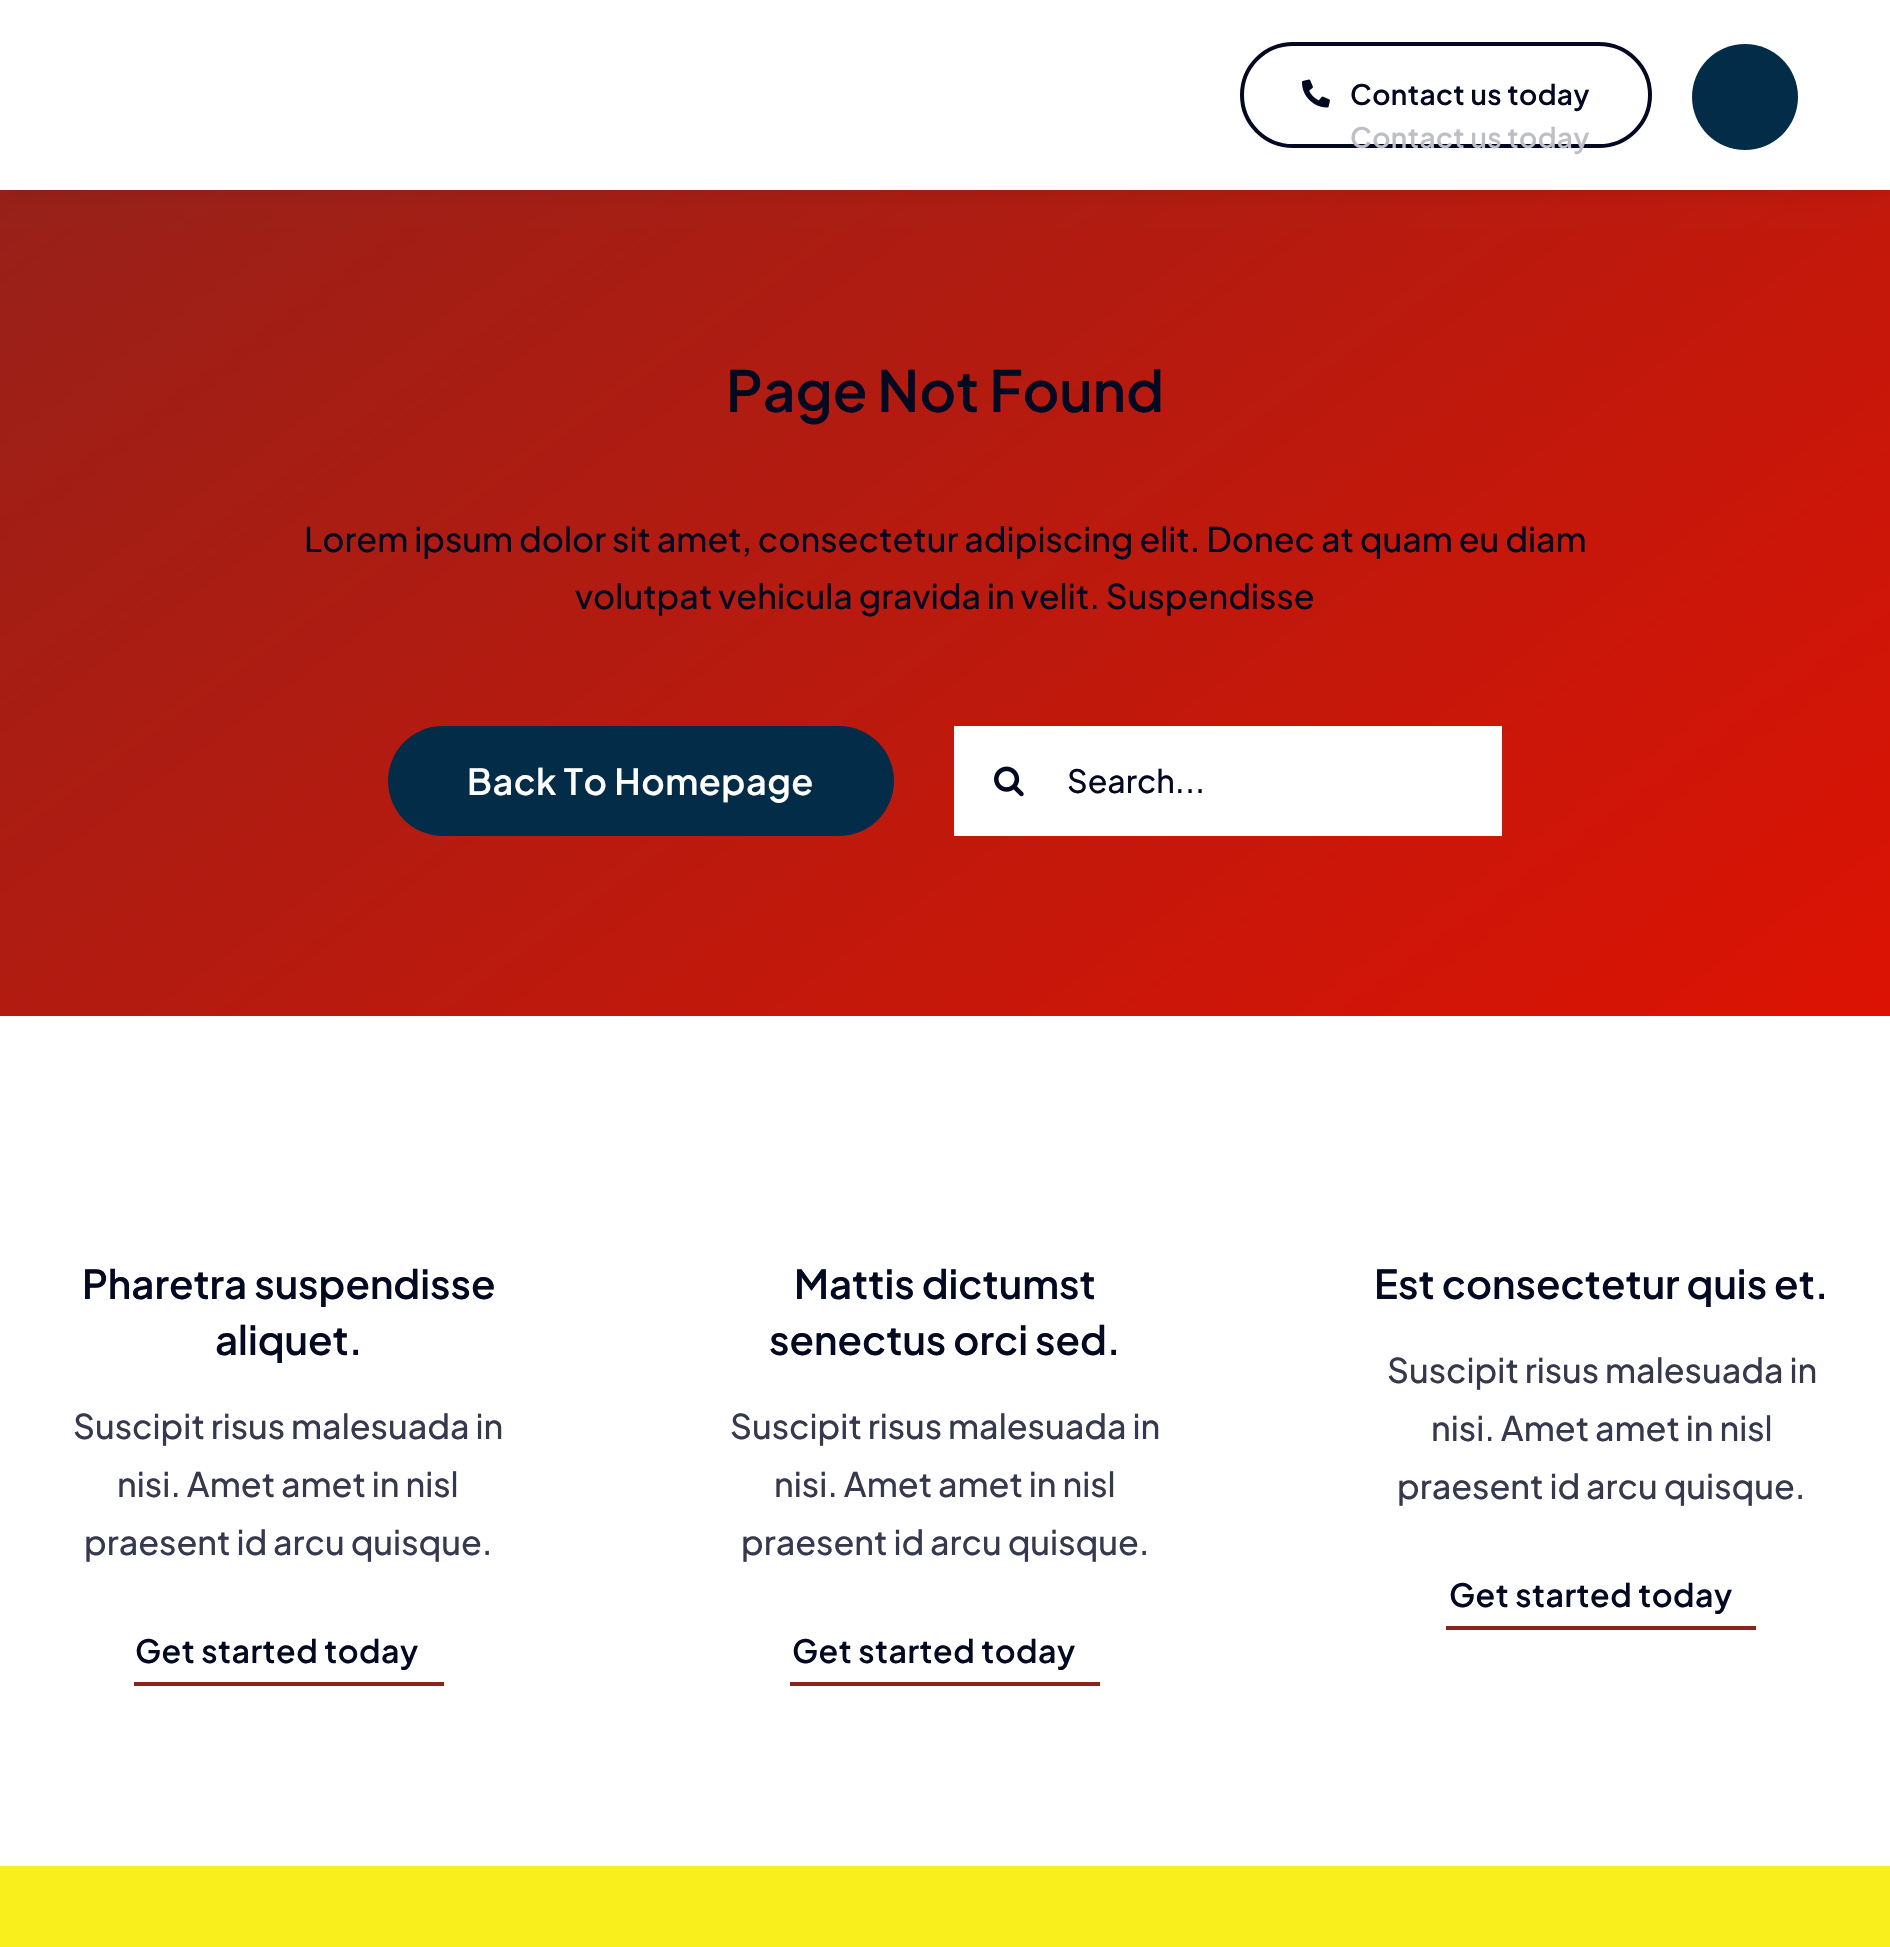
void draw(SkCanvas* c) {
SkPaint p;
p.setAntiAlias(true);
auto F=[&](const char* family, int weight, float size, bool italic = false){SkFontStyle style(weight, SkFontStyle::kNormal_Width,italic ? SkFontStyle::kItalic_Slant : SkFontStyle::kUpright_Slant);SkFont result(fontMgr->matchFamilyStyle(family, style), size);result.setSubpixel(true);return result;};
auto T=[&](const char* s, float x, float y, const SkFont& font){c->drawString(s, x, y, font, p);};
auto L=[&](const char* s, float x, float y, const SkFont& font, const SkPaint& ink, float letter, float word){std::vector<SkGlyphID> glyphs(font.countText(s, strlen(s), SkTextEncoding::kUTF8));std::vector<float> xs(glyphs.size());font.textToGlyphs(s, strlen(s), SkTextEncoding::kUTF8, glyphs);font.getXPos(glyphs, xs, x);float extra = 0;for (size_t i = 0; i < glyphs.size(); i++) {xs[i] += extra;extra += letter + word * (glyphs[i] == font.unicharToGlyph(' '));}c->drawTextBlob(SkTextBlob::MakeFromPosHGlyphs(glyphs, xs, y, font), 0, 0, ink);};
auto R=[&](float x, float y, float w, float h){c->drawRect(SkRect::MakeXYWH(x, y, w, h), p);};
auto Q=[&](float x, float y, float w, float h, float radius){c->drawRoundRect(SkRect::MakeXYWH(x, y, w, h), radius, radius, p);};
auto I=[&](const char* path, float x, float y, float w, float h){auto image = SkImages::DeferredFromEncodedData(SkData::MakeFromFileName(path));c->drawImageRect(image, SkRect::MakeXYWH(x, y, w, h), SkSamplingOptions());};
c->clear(0xffffffff);
{
const SkColor colors[] = {0xff8b231c,0xffdc1304};
const float stops[] = {0,1};
const SkPoint ends[] = {{327,-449}, {1563,1253}};
p.setShader(SkGradientShader::MakeLinear(ends, colors, stops, 2, SkTileMode::kClamp));
p.setAlpha(255);
}
R(0,190,1890,826);
p.setShader(nullptr);
p.setColor(0x1a040820);
p.setMaskFilter(SkMaskFilter::MakeBlur(kNormal_SkBlurStyle, 13));
c->drawRect(SkRect::MakeXYWH(0,0,1890,190),p);
p.setMaskFilter(nullptr);
p.setColor(0xffffffff);
R(0,0,1890,190);
p.setStroke(true);
p.setStrokeWidth(4);
p.setColor(0xff040922);
c->drawRoundRect(SkRect::MakeXYWH(1242,44,408,102),51,51,p);
I("1.png",1302,79,28,29);
auto f1 = F("Plus Jakarta Sans",600,28);
p.setStroke(false);
L("Contact us today",1350,105,f1,p,.4,0);
p.setColor(0xffbebfc6);
L("Contact us today",1350,148,f1,p,.4,0);
p.setColor(0xff032c48);
c->drawCircle(1745,97,53,p);
auto f2 = F("Plus Jakarta Sans",600,56.75);
p.setColor(0xff040922);
T("Page Not Found",726,412,f2);
auto f3 = F("Plus Jakarta Sans",500,34);
T("Lorem ipsum dolor sit amet, consectetur adipiscing elit. Donec at quam eu diam",304,552,f3);
T("volutpat vehicula gravida in velit. Suspendisse",575,609,f3);
p.setColor(0xff032c48);
Q(388,726,506,110,55);
auto f4 = F("Plus Jakarta Sans",600,36);
p.setColor(0xffffffff);
L("Back To Homepage",467,795,f4,p,.5,0);
R(954,726,548,110);
I("2.png",994,766,30,31);
auto f5 = F("Plus Jakarta Sans",500,32);
p.setColor(0xff040922);
T("Search...",1067,793,f5);
auto f6 = F("Plus Jakarta Sans",600,40);
T("Pharetra suspendisse",82,1299,f6);
T("aliquet.",215,1355,f6);
p.setColor(0xff36394d);
T("Suscipit risus malesuada in",73,1439,f3);
T("nisi. Amet amet in nisl",117,1497,f3);
T("praesent id arcu quisque.",84,1555,f3);
p.setColor(0xff8b231c);
R(134,1682,310,4);
auto f7 = F("Plus Jakarta Sans",600,32);
p.setColor(0xff040922);
L("Get started today",135,1663,f7,p,.5,0);
T("Mattis dictumst",794,1299,f6);
T("senectus orci sed.",769,1355,f6);
p.setColor(0xff36394d);
T("Suscipit risus malesuada in",730,1439,f3);
T("nisi. Amet amet in nisl",774,1497,f3);
T("praesent id arcu quisque.",741,1555,f3);
p.setColor(0xff8b231c);
R(790,1682,310,4);
p.setColor(0xff040922);
L("Get started today",792,1663,f7,p,.5,0);
T("Est consectetur quis et.",1374,1299,f6);
p.setColor(0xff36394d);
T("Suscipit risus malesuada in",1387,1383,f3);
T("nisi. Amet amet in nisl",1431,1441,f3);
T("praesent id arcu quisque.",1397,1499,f3);
p.setColor(0xff8b231c);
R(1446,1626,310,4);
p.setColor(0xff040922);
L("Get started today",1449,1607,f7,p,.5,0);
p.setColor(0xfff9ef1c);
R(0,1866,1890,81);
}
